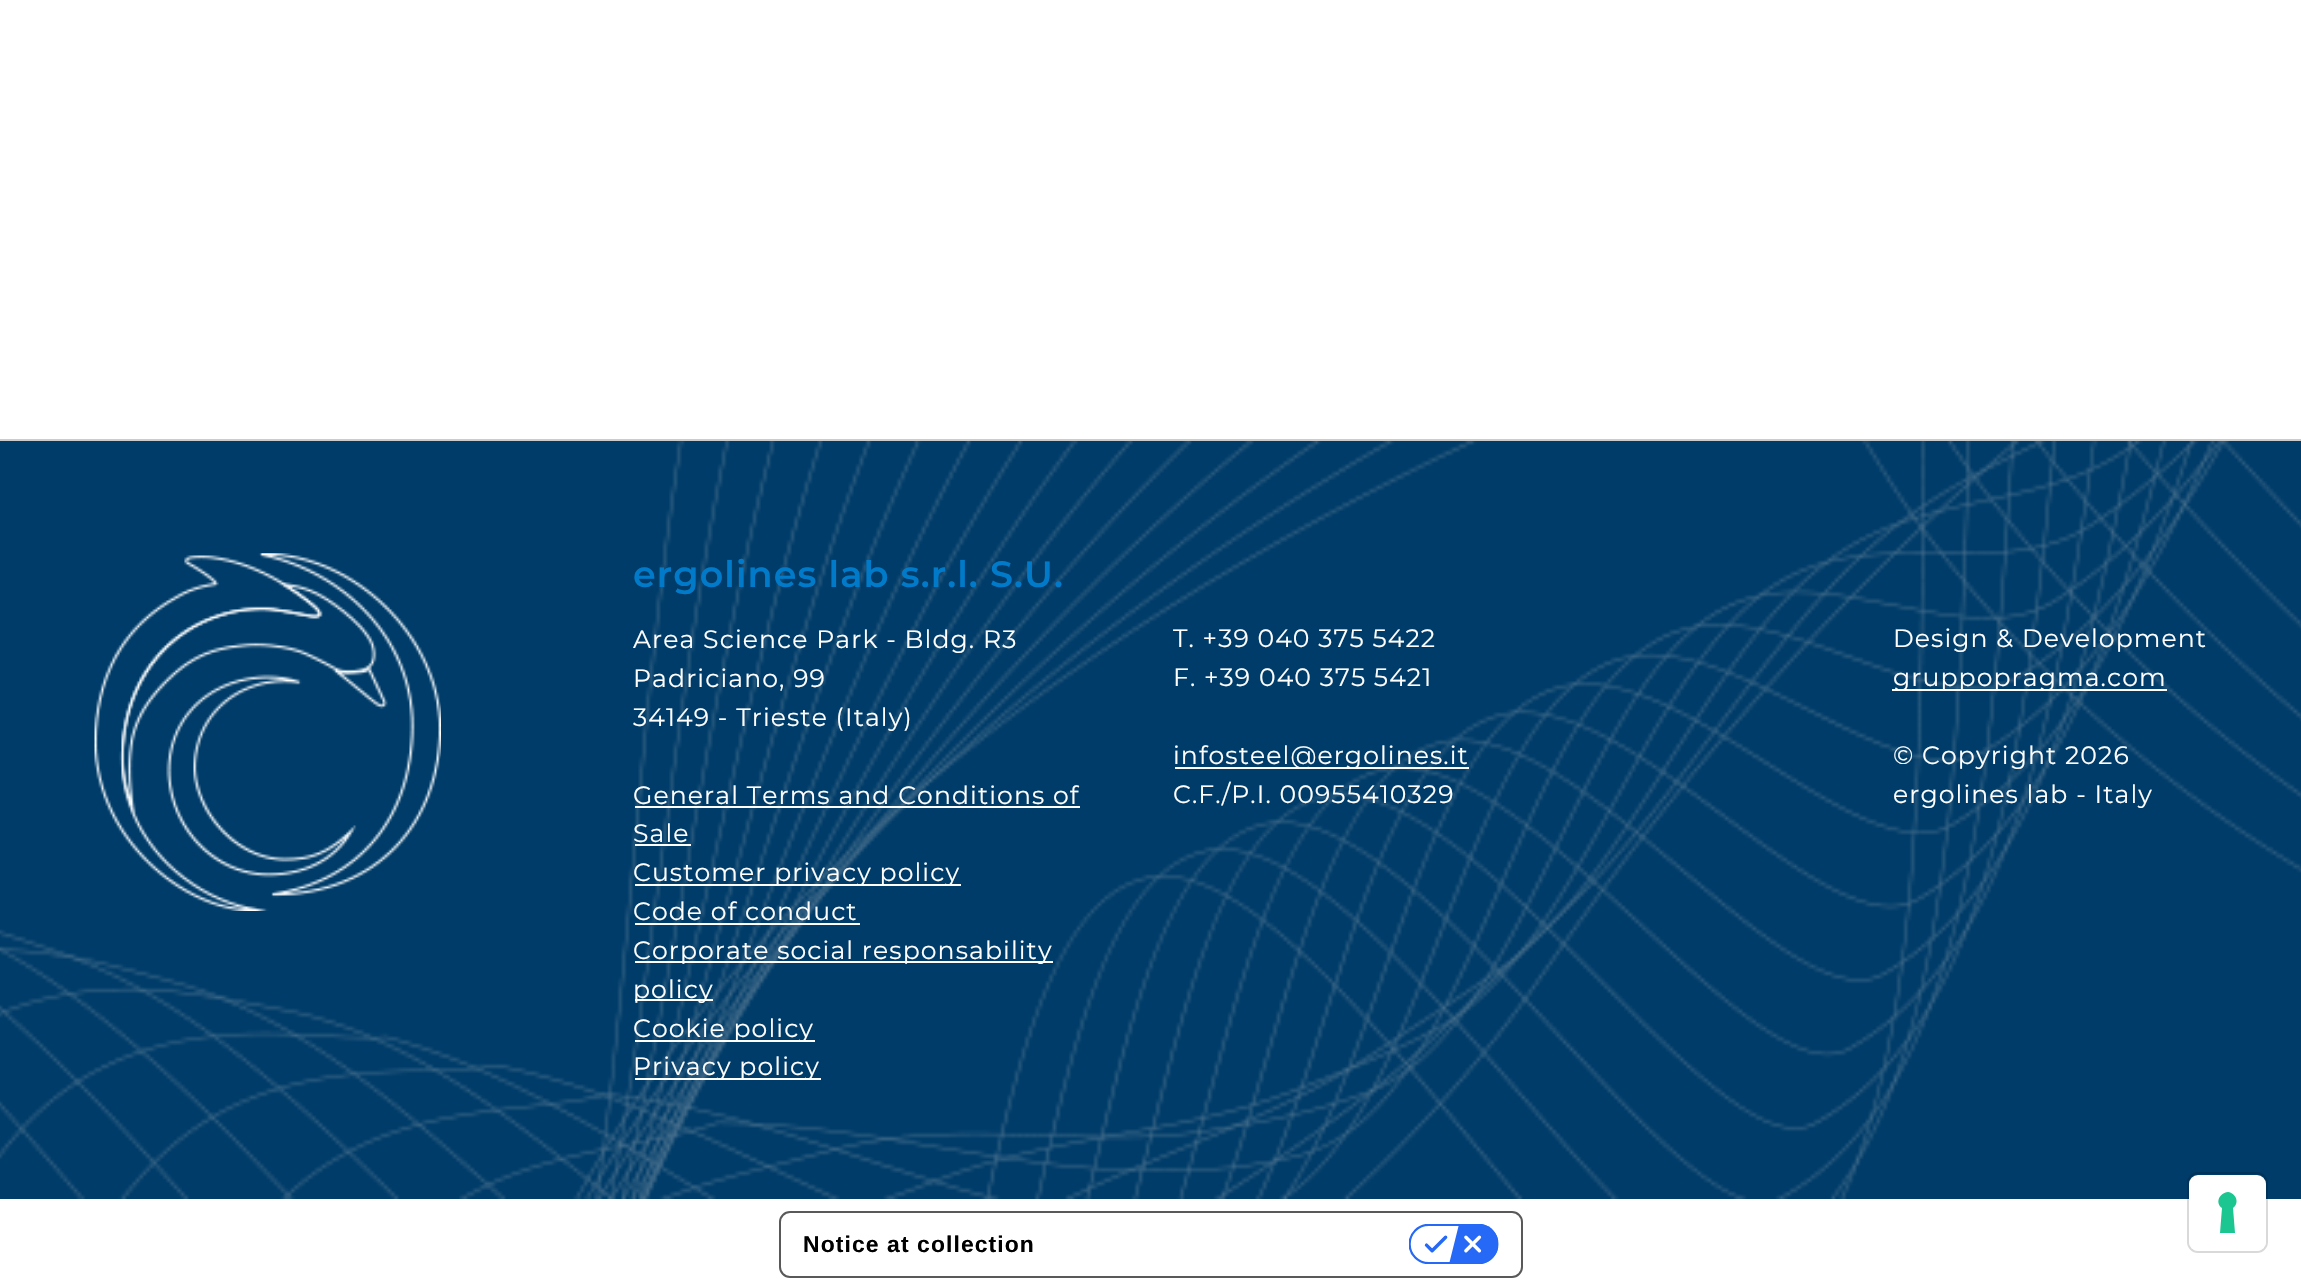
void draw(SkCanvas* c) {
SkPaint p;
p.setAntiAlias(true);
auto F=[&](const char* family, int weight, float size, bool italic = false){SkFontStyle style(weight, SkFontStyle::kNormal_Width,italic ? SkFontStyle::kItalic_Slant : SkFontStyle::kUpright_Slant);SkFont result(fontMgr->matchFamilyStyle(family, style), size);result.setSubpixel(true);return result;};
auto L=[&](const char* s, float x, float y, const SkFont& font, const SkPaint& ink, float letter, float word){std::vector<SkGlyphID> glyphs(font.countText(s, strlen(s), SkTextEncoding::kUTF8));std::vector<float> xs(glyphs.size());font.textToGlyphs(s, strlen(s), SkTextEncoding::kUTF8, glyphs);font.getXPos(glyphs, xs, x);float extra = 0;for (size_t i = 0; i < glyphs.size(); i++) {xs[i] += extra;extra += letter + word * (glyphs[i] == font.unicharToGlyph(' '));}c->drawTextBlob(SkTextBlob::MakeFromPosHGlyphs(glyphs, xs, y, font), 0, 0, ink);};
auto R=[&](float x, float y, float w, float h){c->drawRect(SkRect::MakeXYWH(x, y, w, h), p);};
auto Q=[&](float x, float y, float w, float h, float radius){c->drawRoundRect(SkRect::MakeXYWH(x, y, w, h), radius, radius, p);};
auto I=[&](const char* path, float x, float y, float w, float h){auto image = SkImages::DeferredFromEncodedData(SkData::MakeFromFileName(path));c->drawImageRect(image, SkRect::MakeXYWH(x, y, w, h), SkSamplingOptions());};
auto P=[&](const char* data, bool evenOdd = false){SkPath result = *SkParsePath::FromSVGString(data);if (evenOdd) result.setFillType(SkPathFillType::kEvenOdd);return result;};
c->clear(0xffffffff);
p.setColor(0xff003c69);
R(0,441,2301,758);
I("1.png",0,441,2301,758);
p.setColor(0xffcccccc);
R(0,439,2301,2);
I("2.png",94,553,347,358);
auto f1 = F("Montserrat",600,36.5);
p.setColor(0xff007ac9);
L("ergolines lab s.r.l. S.U.",633,587,f1,p,1.1,0);
auto f2 = F("Montserrat",400,25.1);
p.setColor(0xffffffff);
L("Area Science Park - Bldg. R3",633,648,f2,p,1.1,0);
L("Padriciano, 99",633,687,f2,p,1.1,0);
L("34149 - Trieste (Italy)",633,726,f2,p,1.1,0);
L("General Terms and Conditions of",633,804,f2,p,1.1,0);
R(635,806,445,2);
L("Sale",633,842,f2,p,1.1,0);
R(635,844,56,2);
R(635,884,326,2);
L("Customer privacy policy",633,881,f2,p,1.1,0);
L("Code of conduct",633,920,f2,p,1.1,0);
R(635,923,225,2);
R(635,961,418,2);
L("Corporate social responsability",633,959,f2,p,1.1,0);
R(635,999,78,2);
L("policy",633,998,f2,p,1.1,0);
R(635,1040,180,2);
L("Cookie policy",633,1037,f2,p,1.1,0);
R(635,1078,186,2);
L("Privacy policy",633,1075,f2,p,1.1,0);
L("T. +39 040 375 5422",1173,647,f2,p,1.1,0);
L("F. +39 040 375 5421",1173,686,f2,p,1.1,0);
R(1175,767,294,2);
L("infosteel@ergolines.it",1173,764,f2,p,1.1,0);
L("C.F./P.I. 00955410329",1173,803,f2,p,1.1,0);
L("Design & Development",1893,647,f2,p,1.1,0);
R(1892,689,275,2);
L("gruppopragma.com",1893,686,f2,p,1.1,0);
L("© Copyright 2026",1893,764,f2,p,1.1,0);
L("ergolines lab - Italy",1893,803,f2,p,1.1,0);
p.setStroke(true);
p.setStrokeWidth(2);
p.setColor(0xff595959);
c->drawRoundRect(SkRect::MakeXYWH(780,1212,742,65),10,10,p);
auto f3 = F("Liberation Sans",700,22.9);
p.setStroke(false);
p.setColor(0xff000000);
L("Notice at collection",803,1252,f3,p,1.1,0);
I("3.png",1409,1224,90,40);
p.setStroke(true);
p.setColor(0x26000000);
c->drawRoundRect(SkRect::MakeXYWH(2188,1173,79,79),10,10,p);
p.setStroke(false);
p.setColor(0xffffffff);
Q(2189,1175,77,76,9);
p.setColor(0xff1cc691);
c->drawPath(P("M2228 1192c8 1 12 11 5 16l2 25h-15l2-25c-7-5-3-15 6-16z",true),p);
}
